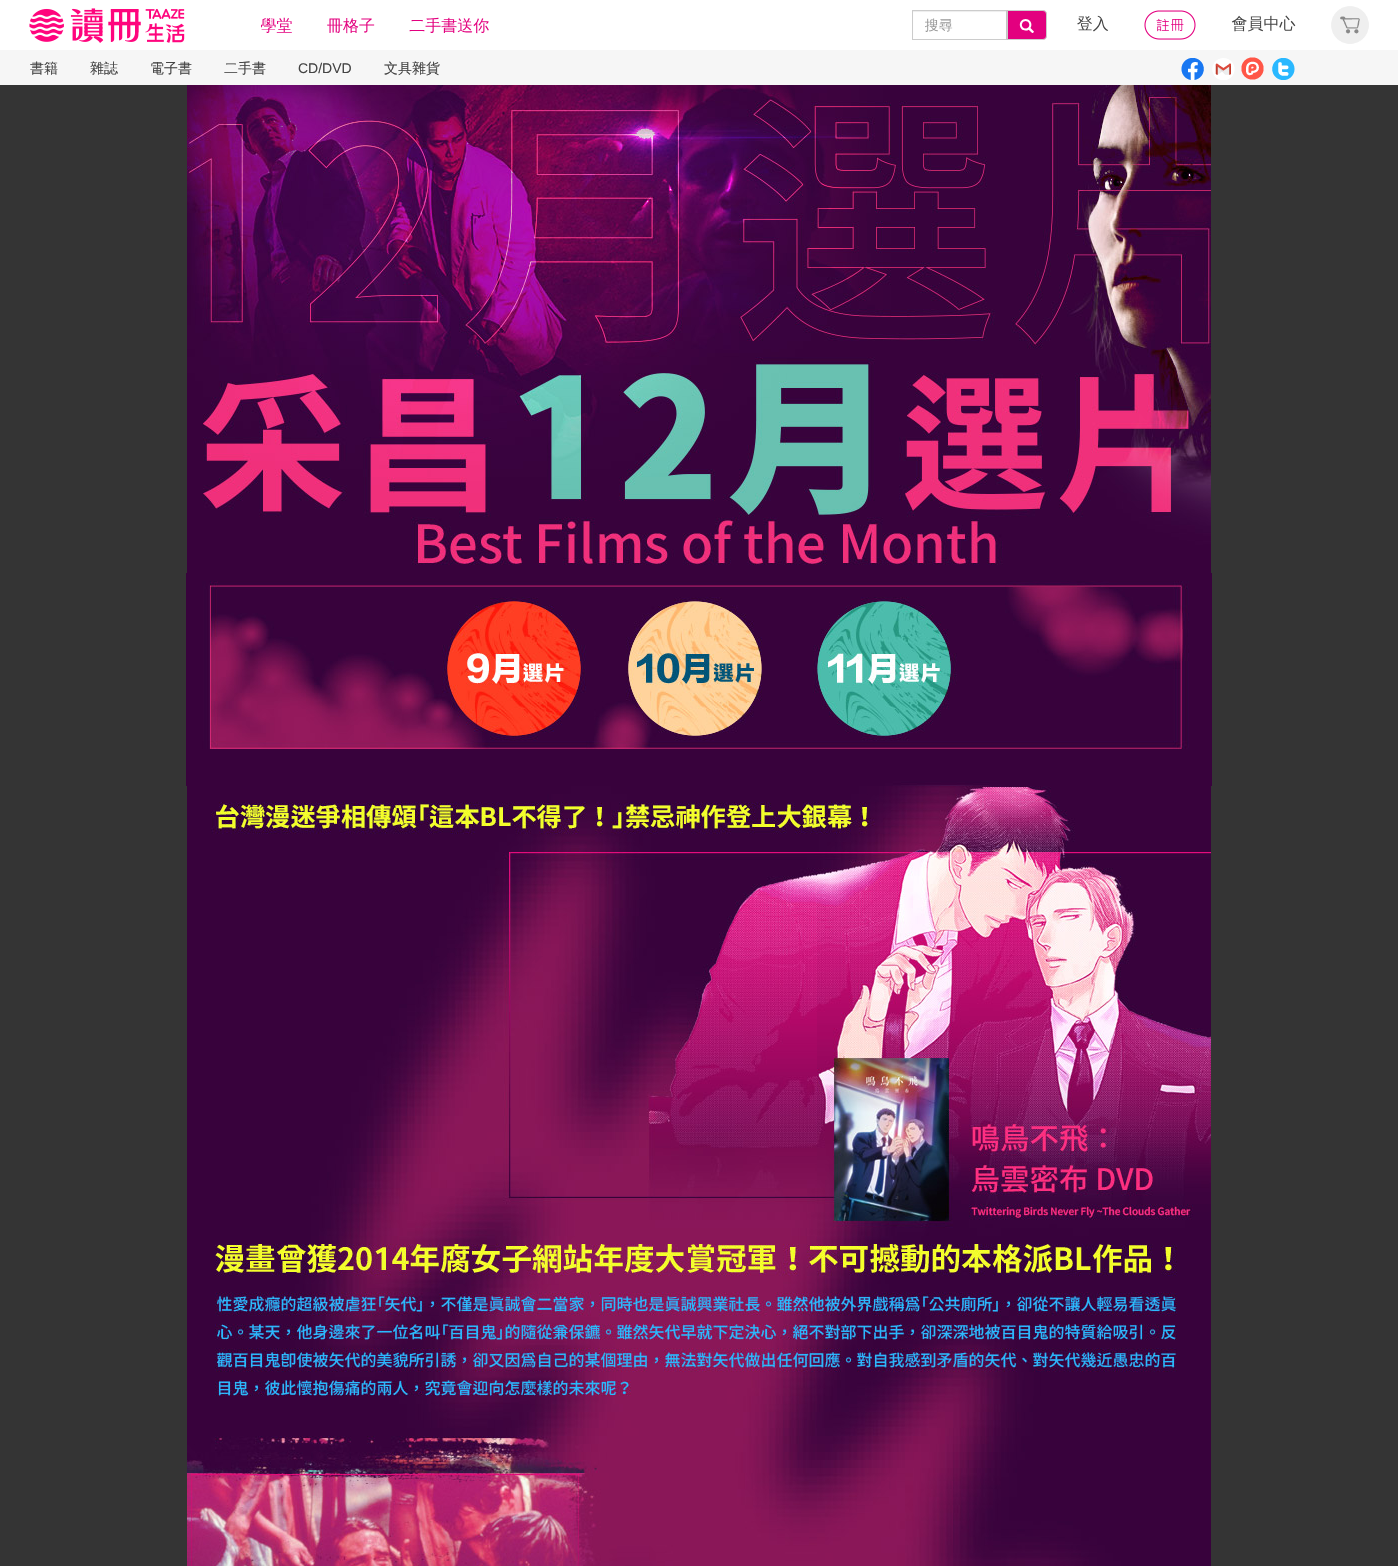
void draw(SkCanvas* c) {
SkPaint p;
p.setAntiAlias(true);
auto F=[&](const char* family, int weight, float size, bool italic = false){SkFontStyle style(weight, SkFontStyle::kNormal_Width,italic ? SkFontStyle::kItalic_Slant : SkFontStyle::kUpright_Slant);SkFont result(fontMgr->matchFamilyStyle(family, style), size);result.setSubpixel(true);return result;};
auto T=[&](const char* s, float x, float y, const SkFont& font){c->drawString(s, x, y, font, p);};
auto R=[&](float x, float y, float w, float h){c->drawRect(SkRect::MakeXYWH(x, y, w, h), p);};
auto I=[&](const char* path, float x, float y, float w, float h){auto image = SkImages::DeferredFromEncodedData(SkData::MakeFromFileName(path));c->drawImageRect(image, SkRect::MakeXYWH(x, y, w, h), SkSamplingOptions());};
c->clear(0xff343434);
I("1.png",0,0,1398,50);
p.setColor(0xfff6f6f6);
R(0,50,1398,35);
auto f1 = F("WenQuanYi Zen Hei",500,14);
p.setColor(0xff444444);
T("書籍",30,73,f1);
T("雜誌",90,73,f1);
T("電子書",150,73,f1);
T("二手書",224,73,f1);
auto f2 = F("Liberation Sans",400,14);
T("CD/DVD",298,73,f2);
T("文具雜貨",384,73,f1);
I("2.png",1181,57,114,23);
I("3.png",187,85,1024,488);
I("4.png",186,573,416,213);
I("5.png",602,573,187,213);
I("6.png",789,573,423,213);
I("7.png",187,786,1024,66);
I("8.png",187,852,28,621);
I("9.png",215,852,602,621);
I("10.png",817,852,394,621);
I("11.png",187,1473,398,93);
I("12.png",585,1473,626,93);
}
